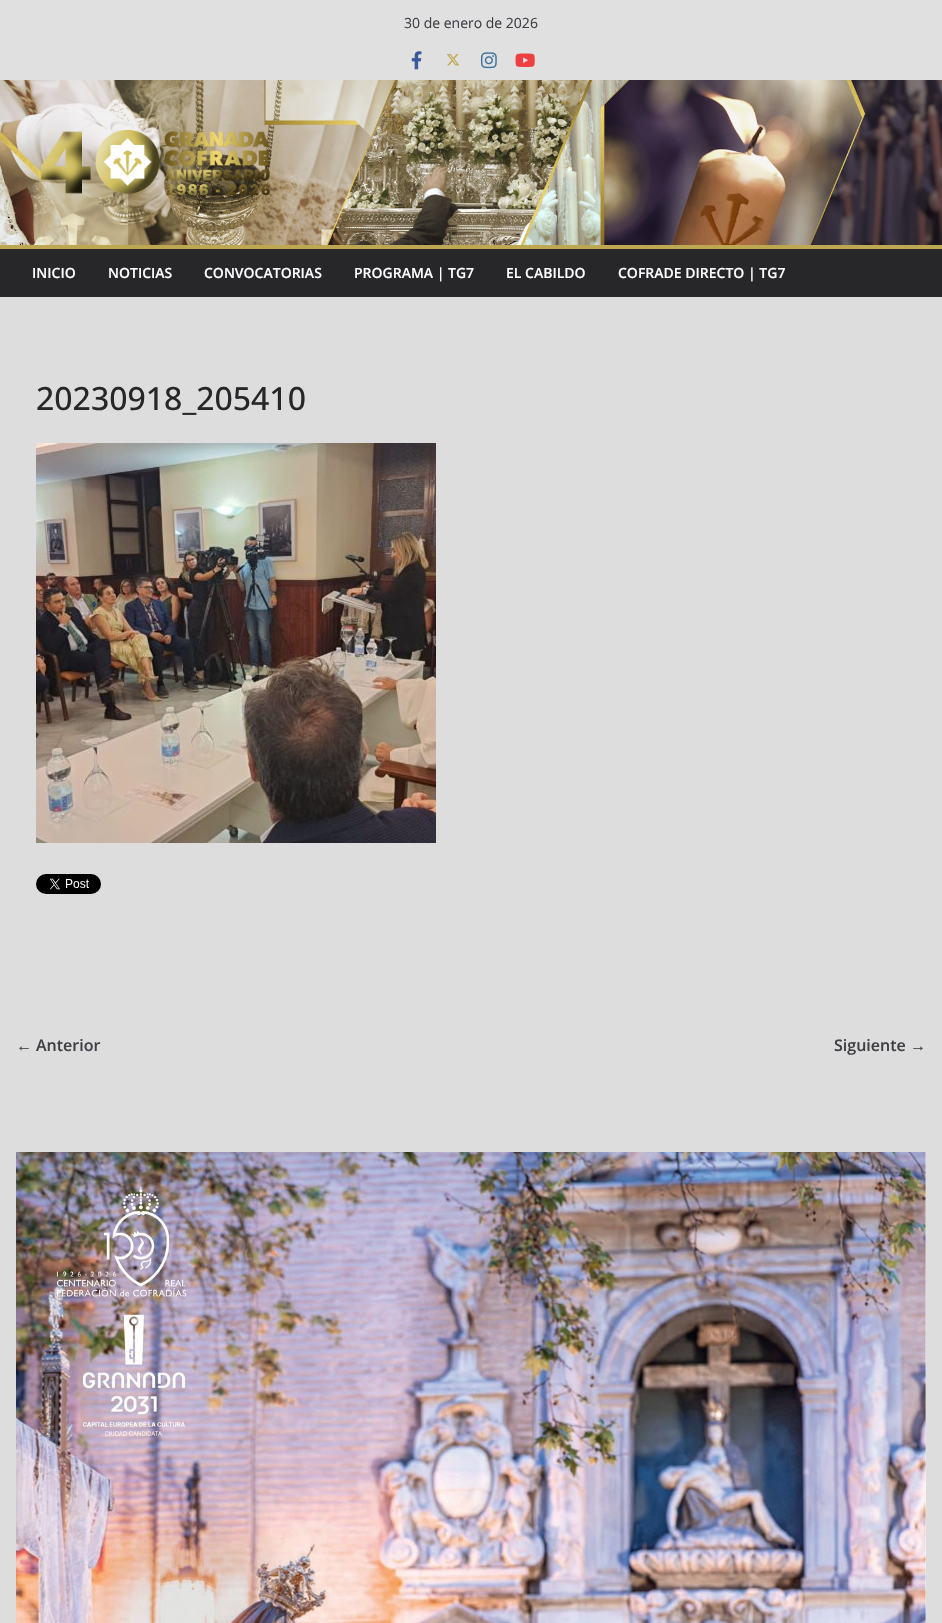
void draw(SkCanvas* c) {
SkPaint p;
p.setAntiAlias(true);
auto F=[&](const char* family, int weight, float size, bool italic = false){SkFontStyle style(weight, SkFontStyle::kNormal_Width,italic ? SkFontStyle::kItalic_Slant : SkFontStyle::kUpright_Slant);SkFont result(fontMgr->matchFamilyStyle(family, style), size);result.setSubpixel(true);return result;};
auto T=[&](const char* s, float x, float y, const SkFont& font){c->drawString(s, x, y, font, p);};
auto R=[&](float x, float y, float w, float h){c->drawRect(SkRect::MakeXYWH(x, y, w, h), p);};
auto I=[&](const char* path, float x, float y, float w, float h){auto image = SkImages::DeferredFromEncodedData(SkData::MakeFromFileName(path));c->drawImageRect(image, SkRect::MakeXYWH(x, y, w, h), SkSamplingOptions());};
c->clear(0xffe0e0e0);
auto f1 = F("Open Sans",400,14);
p.setColor(0xff3f3f46);
T("30 de enero de 2026",404,28,f1);
I("1.png",411,51,11,19);
I("2.png",446,54,14,12);
I("3.png",481,52,16,17);
I("4.png",515,53,20,14);
I("5.png",0,80,942,165);
I("6.png",40,129,231,67);
p.setColor(0xff27272a);
R(0,249,942,48);
p.setColor(0xffbda751);
R(0,245,942,4);
auto f2 = F("Open Sans",600,14);
p.setColor(0xffffffff);
T("INICIO",32,278,f2);
T("NOTICIAS",108,278,f2);
T("CONVOCATORIAS",204,278,f2);
T("PROGRAMA | TG7",354,278,f2);
T("EL CABILDO",506,278,f2);
T("COFRADE DIRECTO | TG7",618,278,f2);
p.setColor(0xffdddddd);
R(0,297,942,1326);
auto f3 = F("Open Sans",500,32);
p.setColor(0xff27272a);
T("20230918_205410",36,410,f3);
I("7.png",36,443,400,400);
I("8.png",36,874,65,20);
auto f4 = F("Liberation Serif",700,16);
p.setColor(0xff3f3f46);
T("←",16,1051,f4);
auto f5 = F("Open Sans",600,16);
T("Anterior",36,1051,f5);
T("Siguiente",834,1051,f5);
T("→",910,1051,f4);
I("9.png",16,1152,910,471);
}
